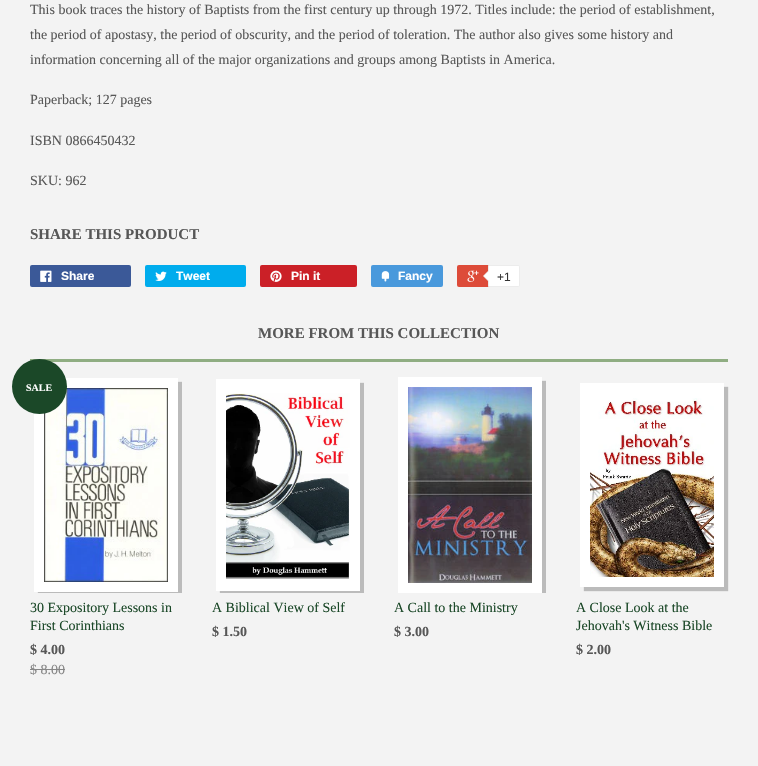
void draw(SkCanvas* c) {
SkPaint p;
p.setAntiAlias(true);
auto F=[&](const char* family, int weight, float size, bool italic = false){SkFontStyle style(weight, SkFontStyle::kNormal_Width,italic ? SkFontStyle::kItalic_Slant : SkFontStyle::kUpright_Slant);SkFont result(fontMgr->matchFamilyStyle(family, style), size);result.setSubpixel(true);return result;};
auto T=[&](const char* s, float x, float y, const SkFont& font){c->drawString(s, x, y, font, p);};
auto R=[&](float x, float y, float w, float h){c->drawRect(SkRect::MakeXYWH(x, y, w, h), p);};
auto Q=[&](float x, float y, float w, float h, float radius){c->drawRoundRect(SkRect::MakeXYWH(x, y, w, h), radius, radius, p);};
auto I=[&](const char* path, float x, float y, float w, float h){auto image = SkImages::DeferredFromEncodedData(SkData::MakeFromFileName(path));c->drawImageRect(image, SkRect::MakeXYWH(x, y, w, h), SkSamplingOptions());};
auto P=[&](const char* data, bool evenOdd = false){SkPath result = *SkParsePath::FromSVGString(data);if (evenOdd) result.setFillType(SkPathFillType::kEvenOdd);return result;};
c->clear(0xfff3f3f3);
auto f1 = F("Liberation Serif",400,14);
p.setColor(0xff575757);
T("This book traces the history of Baptists from the first century up through 1972. Titles include: the period of establishment,",30,14,f1);
T("the period of apostasy, the period of obscurity, and the period of toleration. The author also gives some history and",30,39,f1);
T("information concerning all of the major organizations and groups among Baptists in America.",30,64,f1);
T("Paperback; 127 pages",30,104,f1);
T("ISBN 0866450432",30,145,f1);
T("SKU: 962",30,185,f1);
auto f2 = F("Liberation Serif",700,15);
T("SHARE THIS PRODUCT",30,239,f2);
p.setColor(0xff3b5998);
Q(30,265,101,22,2);
I("1.png",40,270,12,12);
auto f3 = F("Liberation Sans",700,12);
p.setColor(0xffffffff);
T("Share",61,280,f3);
p.setColor(0xff00aced);
Q(145,265,101,22,2);
I("2.png",155,271,12,10);
p.setColor(0xffffffff);
T("Tweet",176,280,f3);
p.setColor(0xffcb2027);
Q(260,265,97,22,2);
I("3.png",270,270,12,12);
p.setColor(0xffffffff);
T("Pin it",291,280,f3);
p.setColor(0xff4999dc);
Q(371,265,72,22,2);
I("4.png",381,271,9,11);
p.setColor(0xffffffff);
T("Fancy",398,280,f3);
p.setColor(0xffdd4b39);
Q(457,265,61,22,2);
I("5.png",467,270,12,12);
p.setColor(0xffffffff);
c->drawPath(P("M488.5 265.5h29.5c1 0 1.5 .5 1.5 1.5v18c0 1-.5 1.5-1.5 1.5h-29.5z"),p);
p.setStroke(true);
p.setStrokeWidth(1);
p.setColor(0xffececec);
c->drawPath(P("M488.5 265.5h29.5c1 0 1.5 .5 1.5 1.5v18c0 1-.5 1.5-1.5 1.5h-29.5z"),p);
p.setStroke(false);
c->drawPath(P("M489 270v12l-6-6z"),p);
p.setColor(0xffffffff);
c->drawPath(P("M490 270v12l-6-6z"),p);
auto f4 = F("Liberation Sans",400,12);
p.setColor(0xff333333);
T("+1",497,281,f4);
p.setColor(0xff8fad82);
R(30,359,698,3);
p.setColor(0xff575757);
T("MORE FROM THIS COLLECTION",258,338,f2);
c->save();
c->clipRect(SkRect::MakeXYWH(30,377,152,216));
p.setColor(0xffbbbbbb);
p.setMaskFilter(SkMaskFilter::MakeBlur(kNormal_SkBlurStyle, .5));
c->drawRect(SkRect::MakeXYWH(38,382,144,214),p);
p.setMaskFilter(nullptr);
c->restore();
p.setColor(0xffffffff);
R(34,378,144,214);
I("6.png",44,388,124,194);
p.setColor(0xff1b4828);
c->drawCircle(39.5,386.5,27.5,p);
auto f5 = F("Liberation Serif",700,10);
p.setColor(0xffffffff);
T("SALE",26,391,f5);
p.setColor(0xff1b4828);
T("30 Expository Lessons in",30,612,f1);
T("First Corinthians",30,630,f1);
auto f6 = F("Liberation Serif",700,14);
p.setColor(0xff575757);
T("$ 4.00",30,654,f6);
p.setColor(0xff868686);
T("$ 8.00",30,674,f1);
R(30,669,35,1);
c->save();
c->clipRect(SkRect::MakeXYWH(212,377,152,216));
p.setColor(0xffbbbbbb);
p.setMaskFilter(SkMaskFilter::MakeBlur(kNormal_SkBlurStyle, .5));
c->drawRect(SkRect::MakeXYWH(220,383,144,212),p);
p.setMaskFilter(nullptr);
c->restore();
p.setColor(0xffffffff);
R(216,379,144,212);
I("7.png",226,393,124,186);
p.setColor(0xff1b4828);
T("A Biblical View of Self",212,612,f1);
p.setColor(0xff575757);
T("$ 1.50",212,636,f6);
c->save();
c->clipRect(SkRect::MakeXYWH(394,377,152,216));
p.setColor(0xffbbbbbb);
p.setMaskFilter(SkMaskFilter::MakeBlur(kNormal_SkBlurStyle, .5));
c->drawRect(SkRect::MakeXYWH(402,381,144,216),p);
p.setMaskFilter(nullptr);
c->restore();
p.setColor(0xffffffff);
R(398,377,144,216);
I("8.png",408,387,124,196);
p.setColor(0xff1b4828);
T("A Call to the Ministry",394,612,f1);
p.setColor(0xff575757);
T("$ 3.00",394,636,f6);
p.setColor(0xffbbbbbb);
p.setMaskFilter(SkMaskFilter::MakeBlur(kNormal_SkBlurStyle, .5));
c->drawRect(SkRect::MakeXYWH(584,387,144,204),p);
p.setMaskFilter(nullptr);
p.setColor(0xffffffff);
R(580,383,144,204);
I("9.png",590,398,124,179);
p.setColor(0xff1b4828);
T("A Close Look at the",576,612,f1);
T("Jehovah's Witness Bible",576,630,f1);
p.setColor(0xff575757);
T("$ 2.00",576,654,f6);
}
